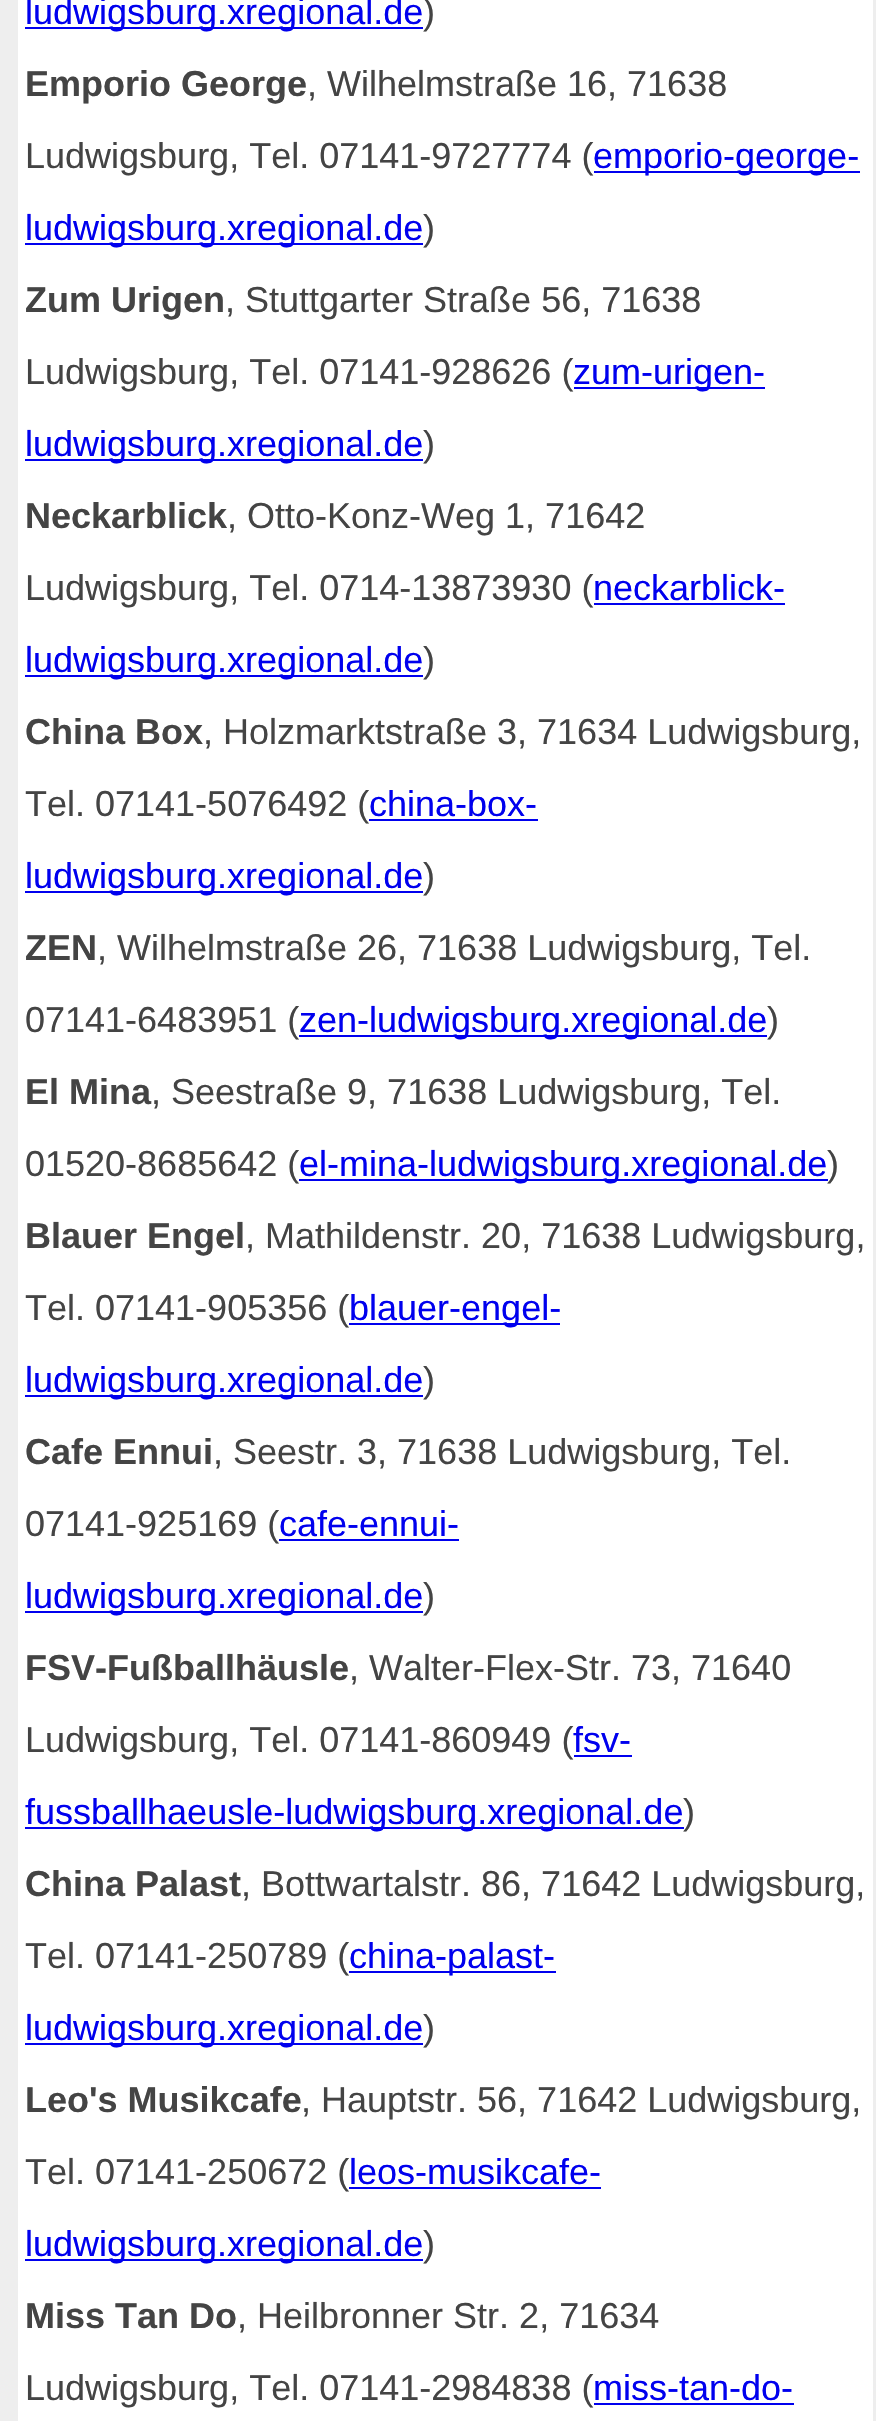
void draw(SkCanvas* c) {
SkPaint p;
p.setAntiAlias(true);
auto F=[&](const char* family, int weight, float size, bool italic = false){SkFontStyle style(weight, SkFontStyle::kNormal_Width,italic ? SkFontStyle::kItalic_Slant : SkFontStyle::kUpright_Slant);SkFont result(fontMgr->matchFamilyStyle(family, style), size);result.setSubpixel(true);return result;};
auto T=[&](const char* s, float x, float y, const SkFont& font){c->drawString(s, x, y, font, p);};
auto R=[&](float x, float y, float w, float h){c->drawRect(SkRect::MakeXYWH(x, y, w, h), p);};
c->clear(0xffeeeeee);
p.setColor(0xffffffff);
R(18,0,855,2421);
p.setColor(0xff0000ee);
R(25,27,398,2);
auto f1 = F("Liberation Sans",400,36);
T("ludwigsburg.xregional.de",25,24,f1);
p.setColor(0xff444444);
T(")",423,24,f1);
auto f2 = F("Liberation Sans",700,36);
T("Emporio George",25,96,f2);
T(", Wilhelmstraße 16, 71638",307,96,f1);
T("Ludwigsburg, Tel. 07141-9727774 (",25,168,f1);
p.setColor(0xff0000ee);
R(594,171,266,2);
T("emporio-george-",593,168,f1);
R(25,243,398,2);
T("ludwigsburg.xregional.de",25,240,f1);
p.setColor(0xff444444);
T(")",423,240,f1);
T("Zum Urigen",25,312,f2);
T(", Stuttgarter Straße 56, 71638",225,312,f1);
T("Ludwigsburg, Tel. 07141-928626 (",25,384,f1);
p.setColor(0xff0000ee);
R(574,387,191,2);
T("zum-urigen-",573,384,f1);
R(25,459,398,2);
T("ludwigsburg.xregional.de",25,456,f1);
p.setColor(0xff444444);
T(")",423,456,f1);
T("Neckarblick",25,528,f2);
T(", Otto-Konz-Weg 1, 71642",227,528,f1);
T("Ludwigsburg, Tel. 0714-13873930 (",25,600,f1);
p.setColor(0xff0000ee);
T("neckarblick-",593,600,f1);
R(594,603,191,2);
R(25,675,398,2);
T("ludwigsburg.xregional.de",25,672,f1);
p.setColor(0xff444444);
T(")",423,672,f1);
T("China Box",25,744,f2);
T(", Holzmarktstraße 3, 71634 Ludwigsburg,",203,744,f1);
T("Tel. 07141-5076492 (",25,816,f1);
p.setColor(0xff0000ee);
T("china-box-",369,816,f1);
R(369,819,169,2);
R(25,891,398,2);
T("ludwigsburg.xregional.de",25,888,f1);
p.setColor(0xff444444);
T(")",423,888,f1);
T("ZEN",25,960,f2);
T(", Wilhelmstraße 26, 71638 Ludwigsburg, Tel.",97,960,f1);
T("07141-6483951 (",25,1032,f1);
p.setColor(0xff0000ee);
R(299,1035,468,2);
T("zen-ludwigsburg.xregional.de",299,1032,f1);
p.setColor(0xff444444);
T(")",767,1032,f1);
T("El Mina",25,1104,f2);
T(", Seestraße 9, 71638 Ludwigsburg, Tel.",151,1104,f1);
T("01520-8685642 (",25,1176,f1);
p.setColor(0xff0000ee);
R(299,1179,529,2);
T("el-mina-ludwigsburg.xregional.de",299,1176,f1);
p.setColor(0xff444444);
T(")",827,1176,f1);
T("Blauer Engel",25,1248,f2);
T(", Mathildenstr. 20, 71638 Ludwigsburg,",245,1248,f1);
T("Tel. 07141-905356 (",25,1320,f1);
p.setColor(0xff0000ee);
R(349,1323,211,2);
T("blauer-engel-",349,1320,f1);
R(25,1395,398,2);
T("ludwigsburg.xregional.de",25,1392,f1);
p.setColor(0xff444444);
T(")",423,1392,f1);
T("Cafe Ennui",25,1464,f2);
T(", Seestr. 3, 71638 Ludwigsburg, Tel.",213,1464,f1);
T("07141-925169 (",25,1536,f1);
p.setColor(0xff0000ee);
T("cafe-ennui-",279,1536,f1);
R(279,1539,180,2);
R(25,1611,398,2);
T("ludwigsburg.xregional.de",25,1608,f1);
p.setColor(0xff444444);
T(")",423,1608,f1);
T("FSV-Fußballhäusle",25,1680,f2);
T(", Walter-Flex-Str. 73, 71640",349,1680,f1);
T("Ludwigsburg, Tel. 07141-860949 (",25,1752,f1);
p.setColor(0xff0000ee);
T("fsv-",573,1752,f1);
R(574,1755,58,2);
R(25,1827,659,2);
T("fussballhaeusle-ludwigsburg.xregional.de",25,1824,f1);
p.setColor(0xff444444);
T(")",683,1824,f1);
T("China Palast",25,1896,f2);
T(", Bottwartalstr. 86, 71642 Ludwigsburg,",241,1896,f1);
T("Tel. 07141-250789 (",25,1968,f1);
p.setColor(0xff0000ee);
R(349,1971,207,2);
T("china-palast-",349,1968,f1);
R(25,2043,398,2);
T("ludwigsburg.xregional.de",25,2040,f1);
p.setColor(0xff444444);
T(")",423,2040,f1);
T("Leo's Musikcafe",25,2112,f2);
T(", Hauptstr. 56, 71642 Ludwigsburg,",301,2112,f1);
T("Tel. 07141-250672 (",25,2184,f1);
p.setColor(0xff0000ee);
T("leos-musikcafe-",349,2184,f1);
R(349,2187,252,2);
R(25,2259,398,2);
T("ludwigsburg.xregional.de",25,2256,f1);
p.setColor(0xff444444);
T(")",423,2256,f1);
T("Miss Tan Do",25,2328,f2);
T(", Heilbronner Str. 2, 71634",237,2328,f1);
T("Ludwigsburg, Tel. 07141-2984838 (",25,2400,f1);
p.setColor(0xff0000ee);
T("miss-tan-do-",593,2400,f1);
R(594,2403,200,2);
}
